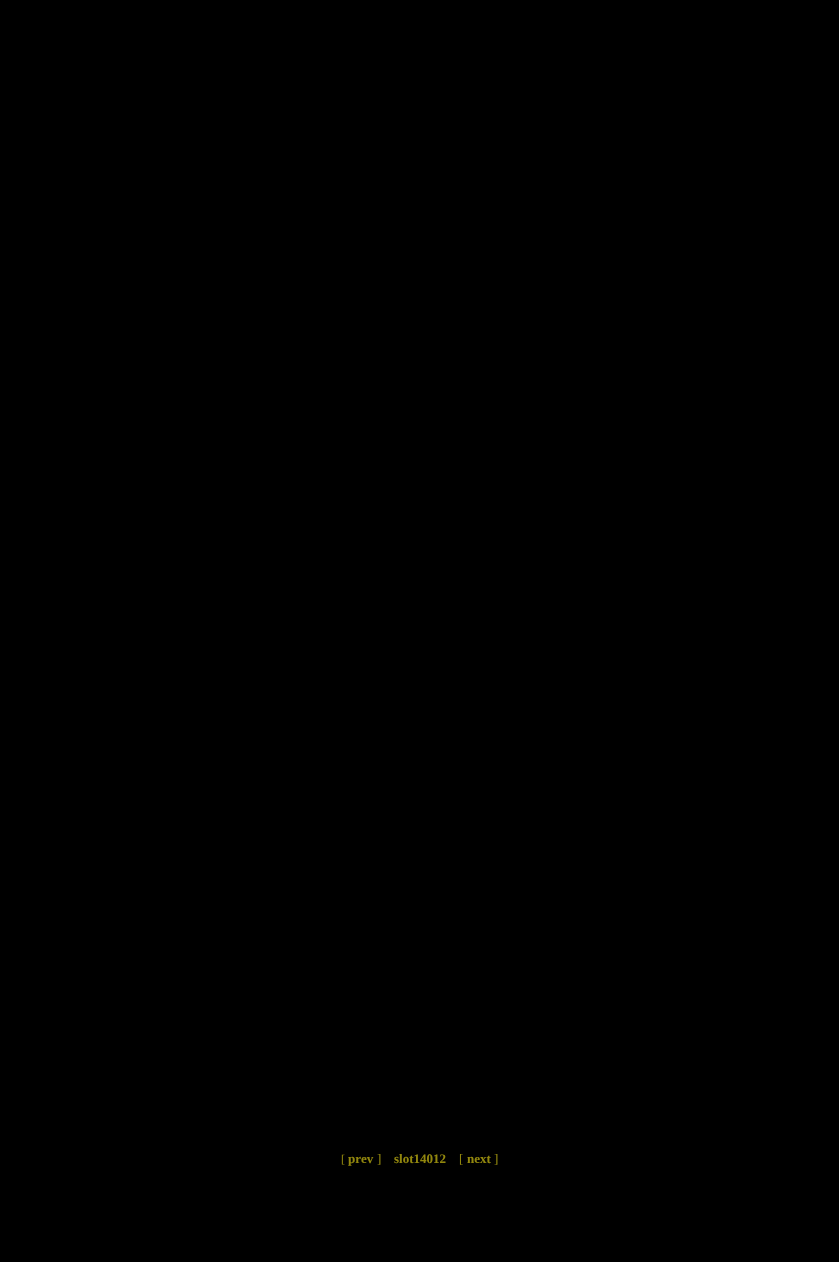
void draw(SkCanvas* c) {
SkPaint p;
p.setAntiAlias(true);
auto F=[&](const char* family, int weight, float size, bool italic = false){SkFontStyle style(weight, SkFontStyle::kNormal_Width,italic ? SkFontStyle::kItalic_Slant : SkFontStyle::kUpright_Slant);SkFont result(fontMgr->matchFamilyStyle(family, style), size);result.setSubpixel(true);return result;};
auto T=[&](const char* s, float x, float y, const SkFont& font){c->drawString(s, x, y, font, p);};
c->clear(0xff000000);
auto f1 = F("Liberation Serif",400,12);
p.setColor(0xff92870d);
T("[",341,1163,f1);
auto f2 = F("Liberation Serif",700,13);
T("prev",348,1163,f2);
auto f3 = F("Liberation Serif",400,13);
T("]",377,1163,f3);
T("slot14012",394,1163,f2);
T("[",459,1163,f3);
T("next",467,1163,f2);
T("]",494,1163,f3);
}
